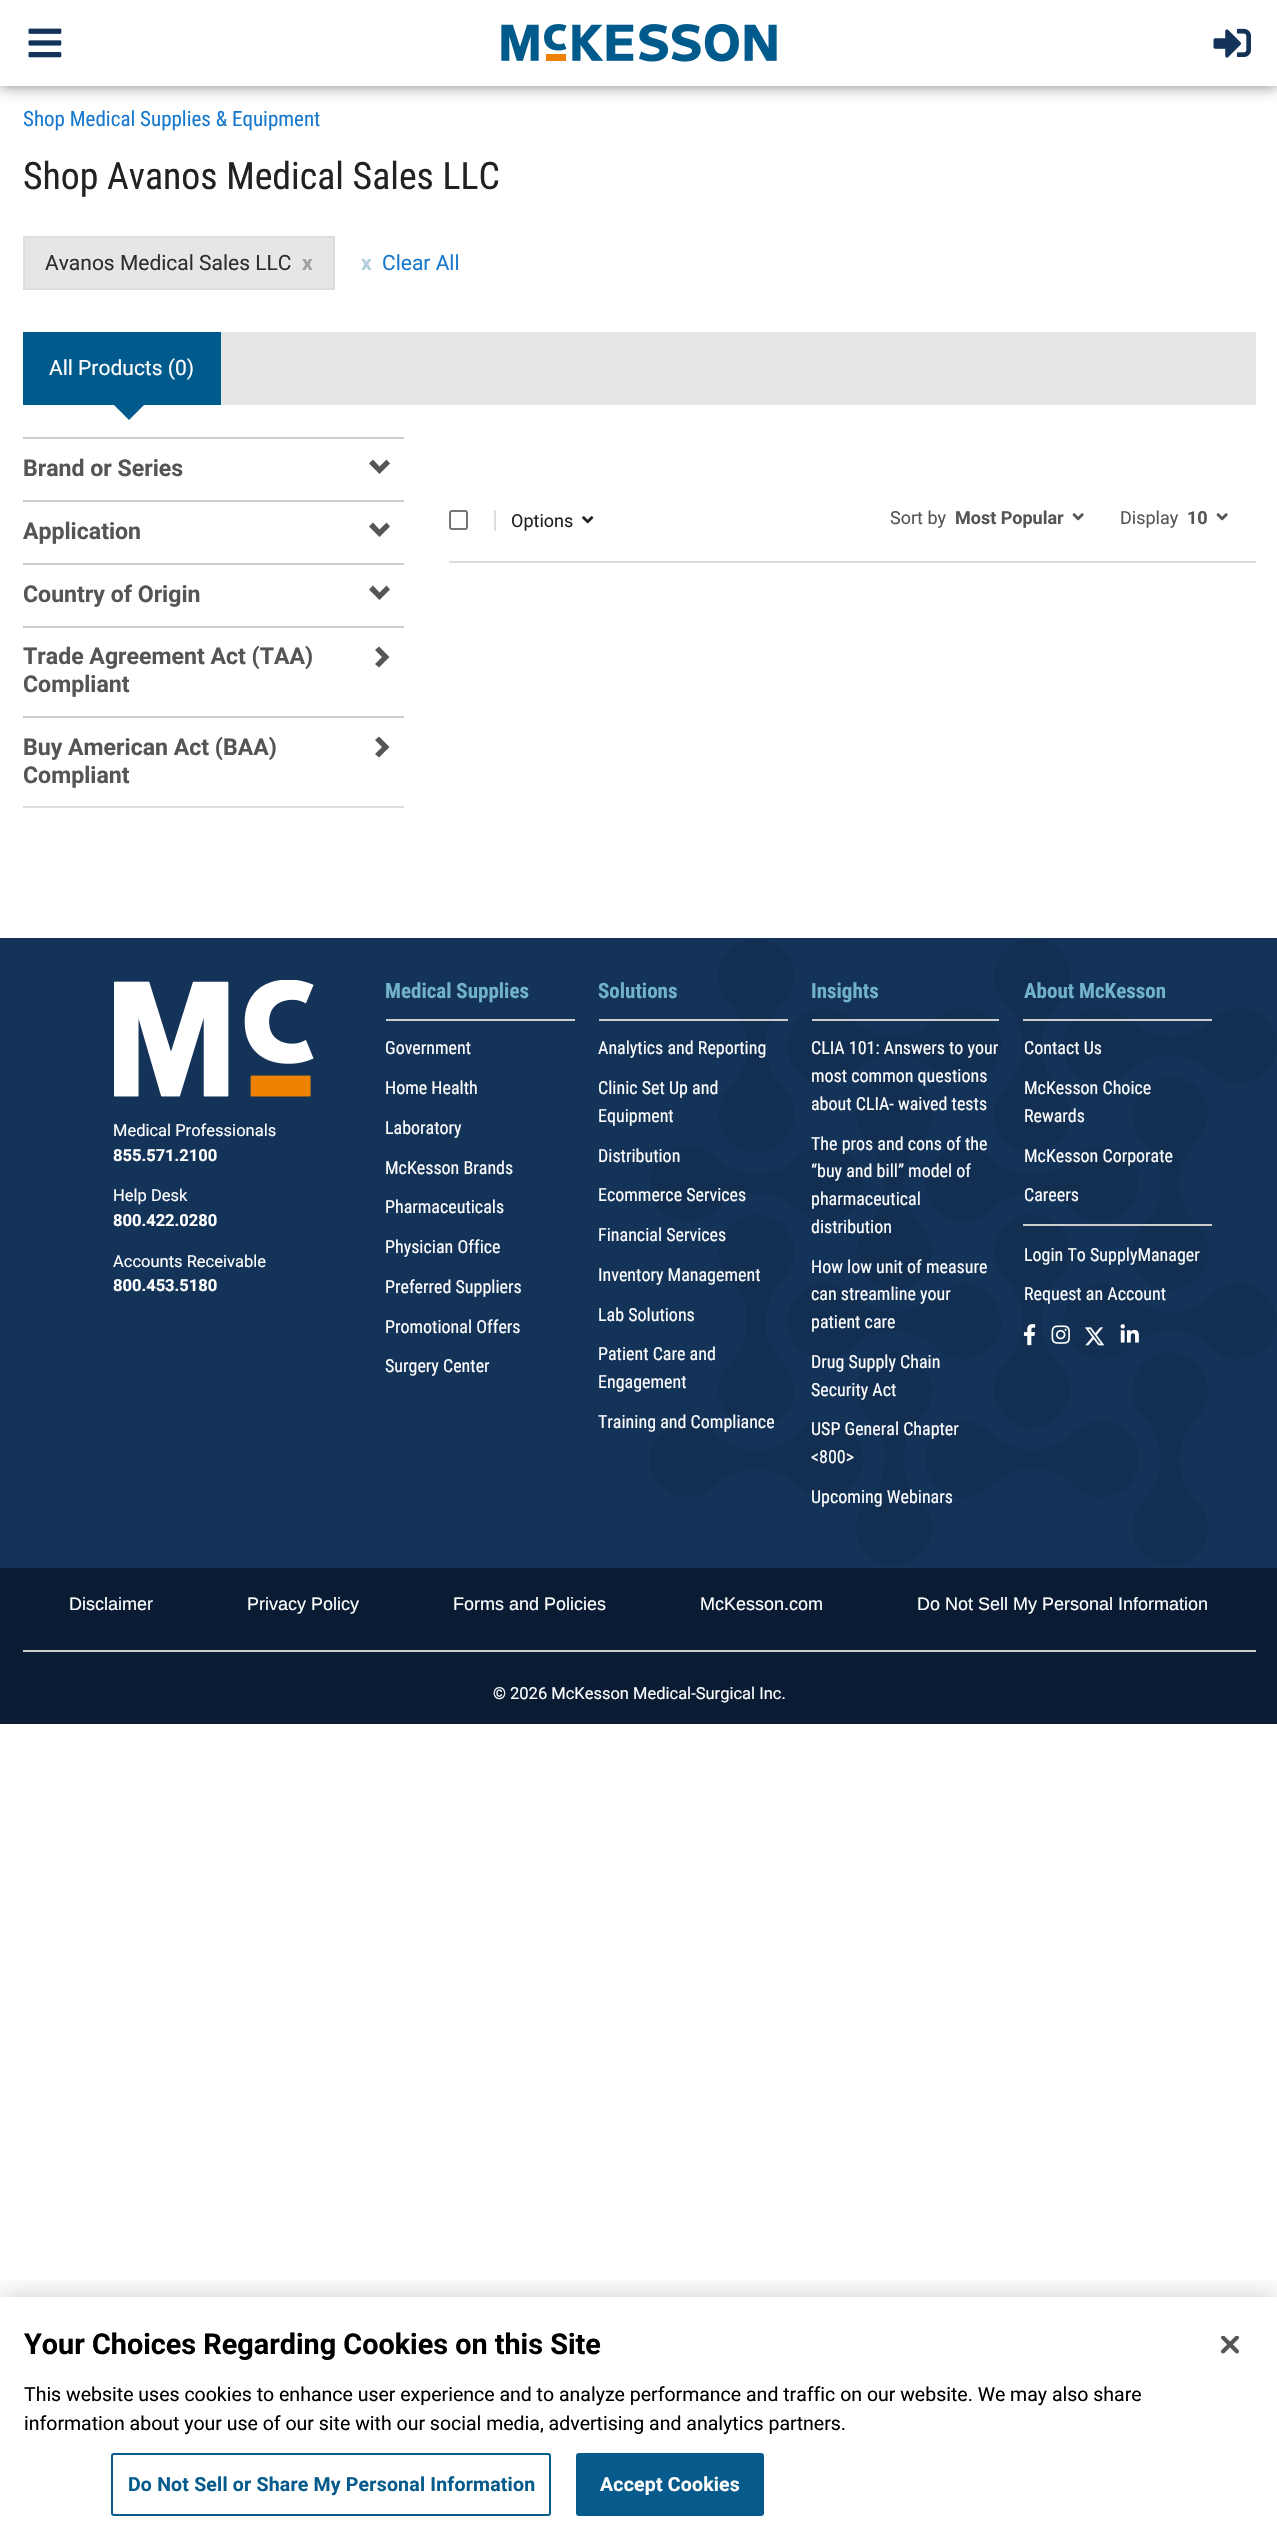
void draw(SkCanvas* c) {
SkPaint p;
p.setAntiAlias(true);
auto F=[&](const char* family, int weight, float size, bool italic = false){SkFontStyle style(weight, SkFontStyle::kNormal_Width,italic ? SkFontStyle::kItalic_Slant : SkFontStyle::kUpright_Slant);SkFont result(fontMgr->matchFamilyStyle(family, style), size);result.setSubpixel(true);return result;};
auto T=[&](const char* s, float x, float y, const SkFont& font){c->drawString(s, x, y, font, p);};
auto L=[&](const char* s, float x, float y, const SkFont& font, const SkPaint& ink, float letter, float word){std::vector<SkGlyphID> glyphs(font.countText(s, strlen(s), SkTextEncoding::kUTF8));std::vector<float> xs(glyphs.size());font.textToGlyphs(s, strlen(s), SkTextEncoding::kUTF8, glyphs);font.getXPos(glyphs, xs, x);float extra = 0;for (size_t i = 0; i < glyphs.size(); i++) {xs[i] += extra;extra += letter + word * (glyphs[i] == font.unicharToGlyph(' '));}c->drawTextBlob(SkTextBlob::MakeFromPosHGlyphs(glyphs, xs, y, font), 0, 0, ink);};
auto R=[&](float x, float y, float w, float h){c->drawRect(SkRect::MakeXYWH(x, y, w, h), p);};
auto I=[&](const char* path, float x, float y, float w, float h){auto image = SkImages::DeferredFromEncodedData(SkData::MakeFromFileName(path));c->drawImageRect(image, SkRect::MakeXYWH(x, y, w, h), SkSamplingOptions());};
auto P=[&](const char* data, bool evenOdd = false){SkPath result = *SkParsePath::FromSVGString(data);if (evenOdd) result.setFillType(SkPathFillType::kEvenOdd);return result;};
c->clear(0xffffffff);
p.setColor(0x80000000);
p.setMaskFilter(SkMaskFilter::MakeBlur(kNormal_SkBlurStyle, 7.5));
c->drawRect(SkRect::MakeXYWH(0,0,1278,86),p);
p.setMaskFilter(nullptr);
p.setColor(0xffffffff);
R(0,0,1277,86);
I("1.png",28,28,34,30);
I("2.png",501,24,276,38);
I("3.png",1213,28,38,30);
auto f1 = F("Roboto Condensed",400,21);
p.setColor(0xff1879cd);
T("Shop Medical Supplies & Equipment",23,126,f1);
auto f2 = F("Roboto Condensed",400,37.75);
p.setColor(0xff222222);
T("Shop Avanos Medical Sales LLC",23,189,f2);
p.setColor(0xffe6e6e6);
c->drawRect(SkRect::MakeXYWH(24,237,310,52),p);
p.setStroke(true);
p.setStrokeWidth(2);
p.setColor(0xffdddddd);
c->drawRect(SkRect::MakeXYWH(24,237,310,52),p);
auto f3 = F("Roboto",400,21);
p.setStroke(false);
p.setColor(0xff2e2e2e);
T("Avanos Medical Sales LLC",45,270,f3);
auto f4 = F("Roboto",700,21);
p.setColor(0xffa1a1a1);
T("x",302,270,f4);
p.setColor(0xffb3cedd);
T("x",361,270,f4);
p.setColor(0xff1879cd);
T("Clear All",382,270,f3);
p.setColor(0xffe6e6e6);
R(221,332,1035,73);
p.setColor(0xff005a8c);
R(23,332,198,73);
p.setColor(0xffffffff);
T("All Products (0)",49,375,f3);
p.setColor(0xff005a8c);
c->drawPath(P("M114 405h30l-15 15z"),p);
p.setColor(0xffdddddd);
R(23,806,381,2);
p.setColor(0xffcccccc);
R(23,437,381,2);
auto f5 = F("Roboto",700,23.1);
p.setColor(0xff555555);
T("Brand or Series",23,476,f5);
c->drawPath(P("M390 463.5l-10.5 10.5l-10.5-10.5l4-4l6.5 7l7-7z"),p);
p.setColor(0xffcccccc);
R(23,500,381,2);
p.setColor(0xff555555);
T("Application",23,539,f5);
c->drawPath(P("M390 526.5l-10.5 10.5l-10.5-10.5l4-4l6.5 7l7-7z"),p);
p.setColor(0xffcccccc);
R(23,563,381,2);
p.setColor(0xff555555);
T("Country of Origin",23,602,f5);
c->drawPath(P("M390 589.5l-10.5 10.5l-10.5-10.5l4-4l6.5 7l7-7z"),p);
p.setColor(0xffcccccc);
R(23,626,381,2);
p.setColor(0xff555555);
T("Trade Agreement Act (TAA)",23,664,f5);
c->drawPath(P("M389.5 657l-10.5 10.5l-4-3.5l7-7l-7-7l4-3.5z"),p);
T("Compliant",23,692,f5);
p.setColor(0xffcccccc);
R(23,716,381,2);
p.setColor(0xff555555);
T("Buy American Act (BAA)",23,755,f5);
c->drawPath(P("M389.5 747l-10.5 10.5l-4-3.5l7-7l-7-7l4-3.5z"),p);
T("Compliant",23,783,f5);
p.setColor(0xffdddddd);
R(449,561,807,2);
p.setStroke(true);
p.setColor(0xff767676);
c->drawRoundRect(SkRect::MakeXYWH(450,511,17,18),2,2,p);
p.setStroke(false);
p.setColor(0xffdddddd);
R(494,510,2,21);
auto f6 = F("Roboto",400,18);
p.setColor(0xff222222);
T("Options",511,527,f6);
I("4.png",582,516,12,8);
p.setColor(0xff555555);
T("Sort by",890,524,f6);
auto f7 = F("Roboto",700,18);
T("Most Popular",955,524,f7);
I("5.png",1072,513,12,8);
T("Display",1120,524,f6);
T("10",1187,524,f7);
I("5.png",1216,513,12,8);
p.setColor(0xff143359);
R(0,938,1277,630);
I("6.png",650,939,627,627);
I("7.png",114,980,200,117);
auto f8 = F("Roboto",400,16.5);
p.setColor(0xffffffff);
T("Medical Professionals",113,1136,f8);
auto f9 = F("Roboto",700,16.5);
T("855.571.2100",113,1161,f9);
T("Help Desk",113,1201,f8);
T("800.422.0280",113,1226,f9);
T("Accounts Receivable",113,1267,f8);
T("800.453.5180",113,1291,f9);
auto f10 = F("Roboto Condensed",700,21);
p.setColor(0xff71b2c9);
T("Medical Supplies",385,998,f10);
p.setColor(0xffcccccc);
R(386,1019,189,2);
auto f11 = F("Roboto Condensed",400,18);
p.setColor(0xffffffff);
T("Government",385,1054,f11);
T("Home Health",385,1094,f11);
T("Laboratory",385,1134,f11);
T("McKesson Brands",385,1174,f11);
T("Pharmaceuticals",385,1213,f11);
T("Physician Office",385,1253,f11);
T("Preferred Suppliers",385,1293,f11);
T("Promotional Offers",385,1333,f11);
T("Surgery Center",385,1372,f11);
p.setColor(0xff71b2c9);
T("Solutions",598,998,f10);
p.setColor(0xffcccccc);
R(599,1019,189,2);
p.setColor(0xffffffff);
T("Analytics and Reporting",598,1054,f11);
T("Clinic Set Up and",598,1094,f11);
T("Equipment",598,1122,f11);
T("Distribution",598,1162,f11);
T("Ecommerce Services",598,1201,f11);
T("Financial Services",598,1241,f11);
T("Inventory Management",598,1281,f11);
T("Lab Solutions",598,1321,f11);
T("Patient Care and",598,1360,f11);
T("Engagement",598,1388,f11);
T("Training and Compliance",598,1428,f11);
p.setColor(0xff71b2c9);
T("Insights",811,998,f10);
p.setColor(0xffcccccc);
R(812,1019,187,2);
p.setColor(0xffffffff);
T("CLIA 101: Answers to your",811,1054,f11);
T("most common questions",811,1082,f11);
T("about CLIA- waived tests",811,1110,f11);
T("The pros and cons of the",811,1150,f11);
T("“buy and bill” model of",811,1177,f11);
T("pharmaceutical",811,1205,f11);
T("distribution",811,1233,f11);
T("How low unit of measure",811,1273,f11);
T("can streamline your",811,1300,f11);
T("patient care",811,1328,f11);
T("Drug Supply Chain",811,1368,f11);
T("Security Act",811,1396,f11);
T("USP General Chapter",811,1435,f11);
T("<800>",811,1463,f11);
T("Upcoming Webinars",811,1503,f11);
p.setColor(0xff71b2c9);
T("About McKesson",1024,998,f10);
p.setColor(0xffcccccc);
R(1023,1019,189,2);
p.setColor(0xffffffff);
T("Contact Us",1024,1054,f11);
T("McKesson Choice",1024,1094,f11);
T("Rewards",1024,1122,f11);
T("McKesson Corporate",1024,1162,f11);
T("Careers",1024,1201,f11);
p.setColor(0xffcccccc);
R(1023,1224,189,2);
p.setColor(0xffffffff);
T("Login To SupplyManager",1024,1261,f11);
T("Request an Account",1024,1300,f11);
I("8.png",1023,1324,13,22);
I("9.png",1051,1325,19,19);
I("10.png",1085,1327,20,19);
I("11.png",1120,1324,19,19);
p.setColor(0xff091c34);
R(0,1568,1277,156);
auto f12 = F("Liberation Sans",400,18);
p.setColor(0xffffffff);
T("Disclaimer",69,1610,f12);
T("Privacy Policy",247,1610,f12);
T("Forms and Policies",453,1610,f12);
T("McKesson.com",700,1610,f12);
T("Do Not Sell My Personal Information",917,1610,f12);
p.setColor(0xffcccccc);
R(23,1650,1233,2);
p.setColor(0xffffffff);
T("© 2026 McKesson Medical-Surgical Inc.",493,1699,f8);
c->save();
c->clipRect(SkRect::MakeXYWH(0,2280,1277,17));
p.setColor(0x33000000);
p.setMaskFilter(SkMaskFilter::MakeBlur(kNormal_SkBlurStyle, 13.5));
c->drawRect(SkRect::MakeXYWH(0,2297,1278,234),p);
p.setMaskFilter(nullptr);
c->restore();
auto f13 = F("Roboto",700,28.8);
p.setColor(0xff000000);
T("Your Choices Regarding Cookies on this Site",24,2354,f13);
auto f14 = F("Roboto",400,19.5);
T("This website uses cookies to enhance user experience and to analyze performance and traffic on our website. We may also share",24,2401,f14);
T("information about your use of our site with our social media, advertising and analytics partners.",24,2430,f14);
p.setStroke(true);
p.setColor(0xff075b8c);
c->drawRoundRect(SkRect::MakeXYWH(112,2454,438,61),2,2,p);
auto f15 = F("Roboto",700,19.5);
p.setStroke(false);
L("Do Not Sell or Share My Personal Information",128,2491,f15,p,.2,0);
c->drawRoundRect(SkRect::MakeXYWH(577,2454,186,61),2,2,p);
p.setStroke(true);
c->drawRoundRect(SkRect::MakeXYWH(577,2454,186,61),2,2,p);
p.setStroke(false);
p.setColor(0xffffffff);
L("Accept Cookies",600,2491,f15,p,.2,0);
I("12.png",1221,2336,18,18);
}
